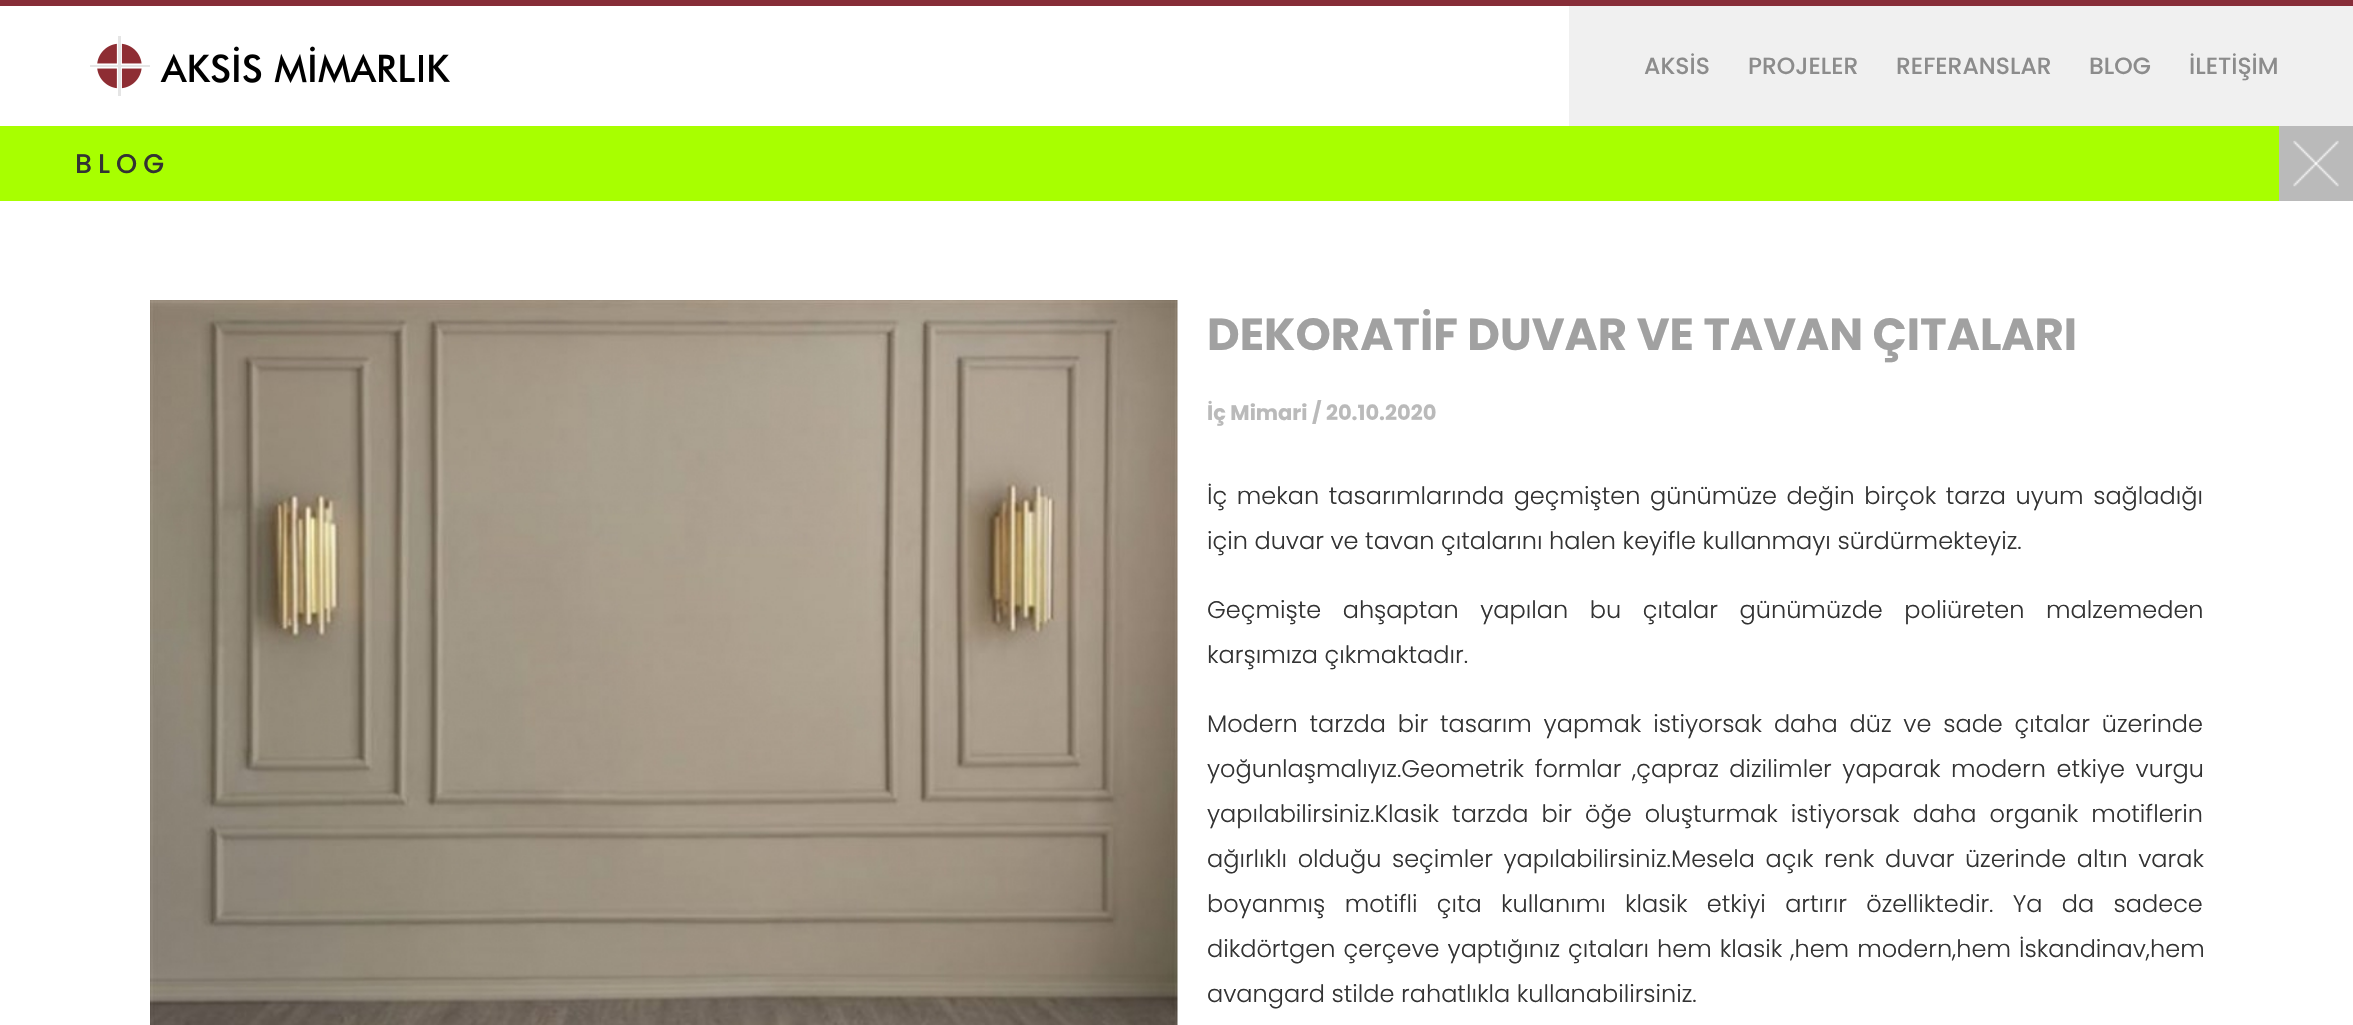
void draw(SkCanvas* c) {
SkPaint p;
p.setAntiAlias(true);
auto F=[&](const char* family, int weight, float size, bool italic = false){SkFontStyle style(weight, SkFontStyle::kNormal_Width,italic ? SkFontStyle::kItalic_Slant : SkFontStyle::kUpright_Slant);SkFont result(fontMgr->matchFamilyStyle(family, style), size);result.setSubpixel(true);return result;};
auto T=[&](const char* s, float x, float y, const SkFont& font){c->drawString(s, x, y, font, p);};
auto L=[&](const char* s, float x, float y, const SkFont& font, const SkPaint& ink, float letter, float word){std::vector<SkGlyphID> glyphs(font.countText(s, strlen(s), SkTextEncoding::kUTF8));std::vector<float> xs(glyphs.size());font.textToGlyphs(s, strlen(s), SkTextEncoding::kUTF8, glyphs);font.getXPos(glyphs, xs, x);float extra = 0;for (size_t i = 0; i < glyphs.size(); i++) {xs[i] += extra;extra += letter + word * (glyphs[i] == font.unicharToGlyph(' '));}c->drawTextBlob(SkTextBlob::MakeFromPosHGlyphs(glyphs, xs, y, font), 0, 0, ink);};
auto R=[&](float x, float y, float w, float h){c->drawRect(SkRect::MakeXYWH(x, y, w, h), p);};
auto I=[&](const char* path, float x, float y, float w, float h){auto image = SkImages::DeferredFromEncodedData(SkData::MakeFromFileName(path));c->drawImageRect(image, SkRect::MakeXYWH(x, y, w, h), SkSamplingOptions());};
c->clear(0xffffffff);
p.setColor(0xff872d38);
R(0,0,2353,6);
I("1.png",90,36,360,60);
p.setColor(0xfff0f0f0);
R(1569,6,784,120);
auto f1 = F("Poppins",500,23.5);
p.setColor(0xff8c8c8c);
T("AKSİS",1644,74,f1);
T("PROJELER",1748,74,f1);
T("REFERANSLAR",1896,74,f1);
T("BLOG",2089,74,f1);
T("İLETİŞİM",2189,74,f1);
p.setColor(0xffa8ff00);
R(0,126,2279,75);
auto f2 = F("Poppins",500,27);
p.setColor(0xff333333);
L("BLOG",75,173,f2,p,6,0);
p.setColor(0xffbababa);
R(2279,126,74,75);
I("2.png",2293,140,46,47);
I("3.png",150,300,1028,725);
auto f3 = F("Poppins",700,45);
p.setColor(0xffa1a1a1);
T("DEKORATİF DUVAR VE TAVAN ÇITALARI",1207,350,f3);
auto f4 = F("Poppins",700,21);
p.setColor(0xffbababa);
T("İç Mimari / 20.10.2020",1207,420,f4);
auto f5 = F("Poppins",300,24);
p.setColor(0xff333333);
L("İç mekan tasarımlarında geçmişten günümüze değin birçok tarza uyum sağladığı",1207,504,f5,p,0,3);
T("için duvar ve tavan çıtalarını halen keyifle kullanmayı sürdürmekteyiz.",1207,549,f5);
L("Geçmişte ahşaptan yapılan bu çıtalar günümüzde poliüreten malzemeden",1207,618,f5,p,0,15);
T("karşımıza çıkmaktadır.",1207,663,f5);
L("Modern tarzda bir tasarım yapmak istiyorsak daha düz ve sade çıtalar üzerinde",1207,732,f5,p,0,5.25);
L("yoğunlaşmalıyız.Geometrik formlar ,çapraz dizilimler yaparak modern etkiye vurgu",1207,777,f5,p,0,4);
L("yapılabilirsiniz.Klasik tarzda bir öğe oluşturmak istiyorsak daha organik motiflerin",1207,822,f5,p,0,6.5);
L("ağırlıklı olduğu seçimler yapılabilirsiniz.Mesela açık renk duvar üzerinde altın varak",1207,867,f5,p,0,4);
L("boyanmış motifli çıta kullanımı klasik etkiyi artırır özelliktedir. Ya da sadece",1207,912,f5,p,0,12.75);
L("dikdörtgen çerçeve yaptığınız çıtaları hem klasik ,hem modern,hem İskandinav,hem",1207,957,f5,p,0,1.5);
T("avangard stilde rahatlıkla kullanabilirsiniz.",1207,1002,f5);
}
